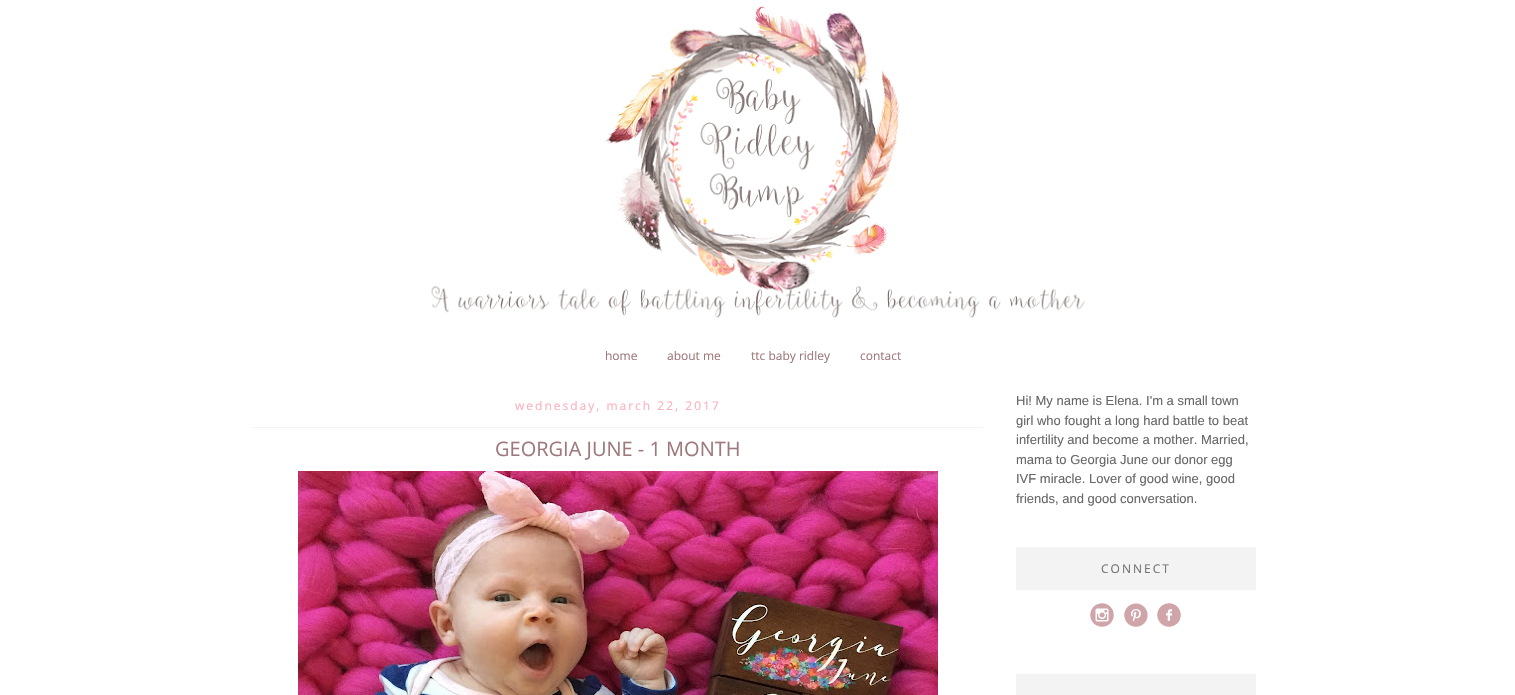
void draw(SkCanvas* c) {
SkPaint p;
p.setAntiAlias(true);
auto F=[&](const char* family, int weight, float size, bool italic = false){SkFontStyle style(weight, SkFontStyle::kNormal_Width,italic ? SkFontStyle::kItalic_Slant : SkFontStyle::kUpright_Slant);SkFont result(fontMgr->matchFamilyStyle(family, style), size);result.setSubpixel(true);return result;};
auto T=[&](const char* s, float x, float y, const SkFont& font){c->drawString(s, x, y, font, p);};
auto L=[&](const char* s, float x, float y, const SkFont& font, const SkPaint& ink, float letter, float word){std::vector<SkGlyphID> glyphs(font.countText(s, strlen(s), SkTextEncoding::kUTF8));std::vector<float> xs(glyphs.size());font.textToGlyphs(s, strlen(s), SkTextEncoding::kUTF8, glyphs);font.getXPos(glyphs, xs, x);float extra = 0;for (size_t i = 0; i < glyphs.size(); i++) {xs[i] += extra;extra += letter + word * (glyphs[i] == font.unicharToGlyph(' '));}c->drawTextBlob(SkTextBlob::MakeFromPosHGlyphs(glyphs, xs, y, font), 0, 0, ink);};
auto R=[&](float x, float y, float w, float h){c->drawRect(SkRect::MakeXYWH(x, y, w, h), p);};
auto I=[&](const char* path, float x, float y, float w, float h){auto image = SkImages::DeferredFromEncodedData(SkData::MakeFromFileName(path));c->drawImageRect(image, SkRect::MakeXYWH(x, y, w, h), SkSamplingOptions());};
c->clear(0xffffffff);
I("1.png",431,6,654,312);
auto f1 = F("Open Sans",400,12);
p.setColor(0xff9e787b);
T("home",605,360,f1);
T("about me",667,360,f1);
T("ttc baby ridley",751,360,f1);
T("contact",860,360,f1);
p.setColor(0xfff3f3f3);
R(253,427,730,1);
p.setColor(0xfffdb1be);
L("wednesday, march 22, 2017",515,410,f1,p,2,0);
auto f2 = F("Open Sans",400,20);
p.setColor(0xff9e787b);
T("GEORGIA JUNE - 1 MONTH",495,456,f2);
I("2.png",298,471,640,224);
auto f3 = F("Liberation Sans",400,13);
p.setColor(0xff666666);
T("Hi! My name is Elena. I'm a small town",1016,405,f3);
T("girl who fought a long hard battle to beat",1016,425,f3);
T("infertility and become a mother. Married,",1016,444,f3);
T("mama to Georgia June our donor egg",1016,464,f3);
T("IVF miracle. Lover of good wine, good",1016,483,f3);
T("friends, and good conversation.",1016,503,f3);
p.setColor(0xfff3f3f3);
R(1016,547,240,43);
p.setColor(0xff717171);
L("CONNECT",1101,573,f1,p,2,0);
I("3.png",1090,603,24,24);
I("4.png",1124,603,24,24);
I("5.png",1157,603,24,24);
p.setColor(0xfff3f3f3);
R(1016,674,240,21);
}
